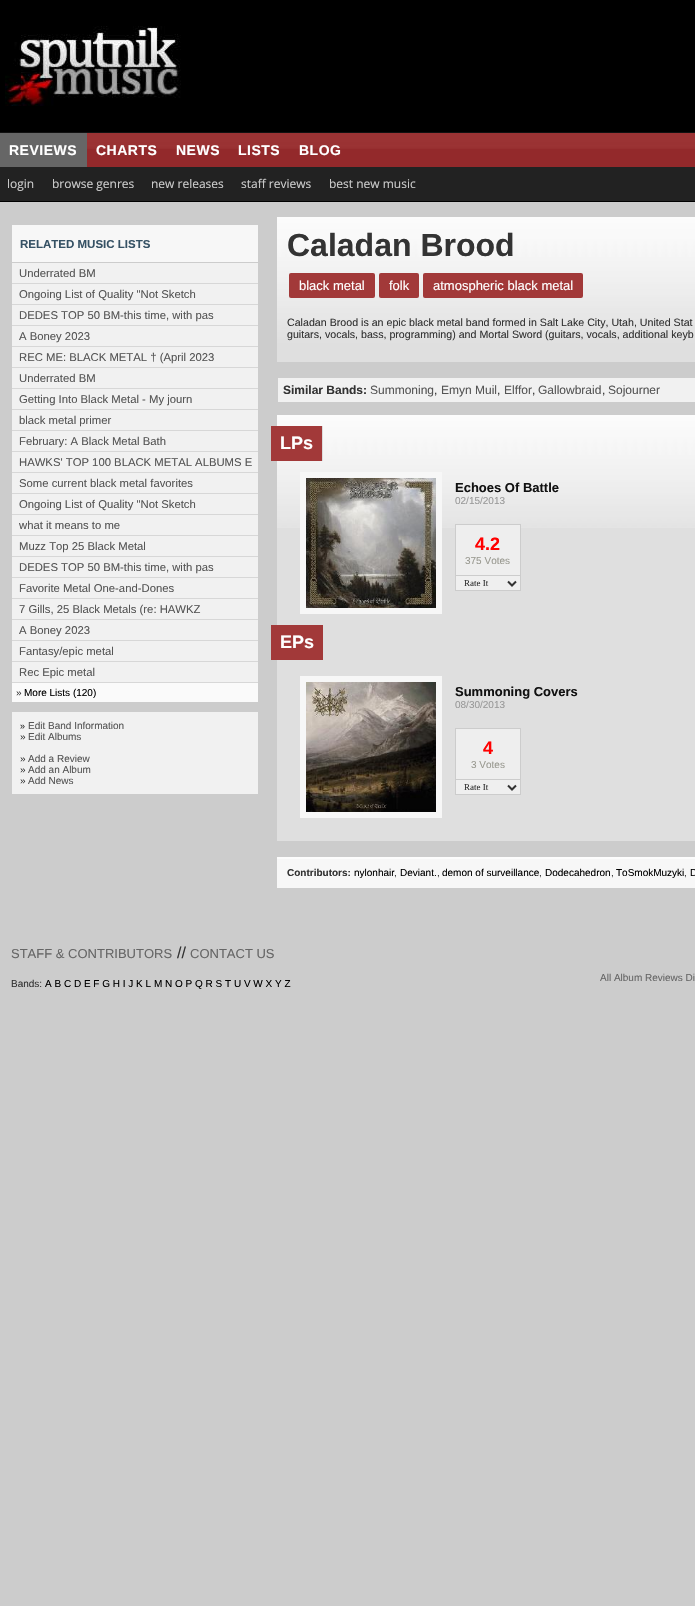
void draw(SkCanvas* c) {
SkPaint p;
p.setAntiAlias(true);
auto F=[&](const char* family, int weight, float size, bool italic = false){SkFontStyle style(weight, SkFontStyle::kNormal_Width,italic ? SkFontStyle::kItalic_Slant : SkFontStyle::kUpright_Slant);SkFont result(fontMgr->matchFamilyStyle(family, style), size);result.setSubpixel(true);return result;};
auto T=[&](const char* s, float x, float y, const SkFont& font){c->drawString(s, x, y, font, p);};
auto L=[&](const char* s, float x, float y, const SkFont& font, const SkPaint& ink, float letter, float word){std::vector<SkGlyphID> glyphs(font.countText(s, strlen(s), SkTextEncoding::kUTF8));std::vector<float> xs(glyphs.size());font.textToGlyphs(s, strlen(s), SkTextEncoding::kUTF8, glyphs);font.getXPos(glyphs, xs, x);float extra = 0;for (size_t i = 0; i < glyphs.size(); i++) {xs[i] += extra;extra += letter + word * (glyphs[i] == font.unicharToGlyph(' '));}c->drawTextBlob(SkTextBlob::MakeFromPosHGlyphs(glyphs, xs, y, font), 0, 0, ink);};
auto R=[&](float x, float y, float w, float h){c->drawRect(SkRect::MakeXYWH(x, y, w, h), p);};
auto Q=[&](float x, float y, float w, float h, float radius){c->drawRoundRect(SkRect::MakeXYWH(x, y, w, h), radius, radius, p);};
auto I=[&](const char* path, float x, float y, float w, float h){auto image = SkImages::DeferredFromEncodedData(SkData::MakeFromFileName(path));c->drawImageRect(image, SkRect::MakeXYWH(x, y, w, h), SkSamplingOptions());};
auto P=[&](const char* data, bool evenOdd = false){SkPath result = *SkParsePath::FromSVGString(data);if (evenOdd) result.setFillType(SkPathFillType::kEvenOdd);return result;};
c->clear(0xffcccccc);
I("1.png",0,0,695,132);
I("2.png",5,26,176,80);
I("3.png",87,133,608,34);
p.setColor(0xff111111);
R(0,132,695,1);
p.setColor(0xff666666);
R(0,133,87,34);
auto f1 = F("Liberation Sans",700,14);
p.setColor(0xffffffff);
L("REVIEWS",9,155,f1,p,.5,0);
L("CHARTS",96,155,f1,p,.5,0);
L("NEWS",176,155,f1,p,.5,0);
L("LISTS",238,155,f1,p,.5,0);
L("BLOG",299,155,f1,p,.5,0);
p.setColor(0xff222222);
R(0,167,695,34);
auto f2 = F("Open Sans",400,12);
p.setColor(0xffcccccc);
T("login",7,188,f2);
T("browse genres",52,188,f2);
T("new releases",151,188,f2);
T("staff reviews",241,188,f2);
T("best new music",329,188,f2);
p.setColor(0xff000000);
R(0,201,695,1);
p.setColor(0xfff7f7f7);
R(12,225,246,37);
auto f3 = F("Liberation Sans",700,11.5);
p.setColor(0xff365265);
T("RELATED MUSIC LISTS",20,248,f3);
p.setColor(0xfff1f1f1);
R(12,263,246,20);
p.setColor(0xffd7d7d7);
R(12,283,246,1);
auto f4 = F("Liberation Sans",400,11.3);
p.setColor(0xff555555);
T("Underrated BM",19,277,f4);
p.setColor(0xfff1f1f1);
R(12,284,246,20);
p.setColor(0xffd7d7d7);
R(12,304,246,1);
p.setColor(0xff555555);
T("Ongoing List of Quality \"Not Sketch",19,298,f4);
p.setColor(0xfff1f1f1);
R(12,305,246,20);
p.setColor(0xffd7d7d7);
R(12,325,246,1);
p.setColor(0xff555555);
T("DEDES TOP 50 BM-this time, with pas",19,319,f4);
p.setColor(0xfff1f1f1);
R(12,326,246,20);
p.setColor(0xffd7d7d7);
R(12,346,246,1);
p.setColor(0xff555555);
T("A Boney 2023",19,340,f4);
p.setColor(0xfff1f1f1);
R(12,347,246,20);
p.setColor(0xffd7d7d7);
R(12,367,246,1);
p.setColor(0xff555555);
T("REC ME: BLACK METAL † (April 2023",19,361,f4);
p.setColor(0xfff1f1f1);
R(12,368,246,20);
p.setColor(0xffd7d7d7);
R(12,388,246,1);
p.setColor(0xff555555);
T("Underrated BM",19,382,f4);
p.setColor(0xfff1f1f1);
R(12,389,246,20);
p.setColor(0xffd7d7d7);
R(12,409,246,1);
p.setColor(0xff555555);
T("Getting Into Black Metal - My journ",19,403,f4);
p.setColor(0xfff1f1f1);
R(12,410,246,20);
p.setColor(0xffd7d7d7);
R(12,430,246,1);
p.setColor(0xff555555);
T("black metal primer",19,424,f4);
p.setColor(0xfff1f1f1);
R(12,431,246,20);
p.setColor(0xffd7d7d7);
R(12,451,246,1);
p.setColor(0xff555555);
T("February: A Black Metal Bath",19,445,f4);
p.setColor(0xfff1f1f1);
R(12,452,246,20);
p.setColor(0xffd7d7d7);
R(12,472,246,1);
p.setColor(0xff555555);
T("HAWKS' TOP 100 BLACK METAL ALBUMS E",19,466,f4);
p.setColor(0xfff1f1f1);
R(12,473,246,20);
p.setColor(0xffd7d7d7);
R(12,493,246,1);
p.setColor(0xff555555);
T("Some current black metal favorites",19,487,f4);
p.setColor(0xfff1f1f1);
R(12,494,246,20);
p.setColor(0xffd7d7d7);
R(12,514,246,1);
p.setColor(0xff555555);
T("Ongoing List of Quality \"Not Sketch",19,508,f4);
p.setColor(0xfff1f1f1);
R(12,515,246,20);
p.setColor(0xffd7d7d7);
R(12,535,246,1);
p.setColor(0xff555555);
T("what it means to me",19,529,f4);
p.setColor(0xfff1f1f1);
R(12,536,246,20);
p.setColor(0xffd7d7d7);
R(12,556,246,1);
p.setColor(0xff555555);
T("Muzz Top 25 Black Metal",19,550,f4);
p.setColor(0xfff1f1f1);
R(12,557,246,20);
p.setColor(0xffd7d7d7);
R(12,577,246,1);
p.setColor(0xff555555);
T("DEDES TOP 50 BM-this time, with pas",19,571,f4);
p.setColor(0xfff1f1f1);
R(12,578,246,20);
p.setColor(0xffd7d7d7);
R(12,598,246,1);
p.setColor(0xff555555);
T("Favorite Metal One-and-Dones",19,592,f4);
p.setColor(0xfff1f1f1);
R(12,599,246,20);
p.setColor(0xffd7d7d7);
R(12,619,246,1);
p.setColor(0xff555555);
T("7 Gills, 25 Black Metals (re: HAWKZ",19,613,f4);
p.setColor(0xfff1f1f1);
R(12,620,246,20);
p.setColor(0xffd7d7d7);
R(12,640,246,1);
p.setColor(0xff555555);
T("A Boney 2023",19,634,f4);
p.setColor(0xfff1f1f1);
R(12,641,246,20);
p.setColor(0xffd7d7d7);
R(12,661,246,1);
p.setColor(0xff555555);
T("Fantasy/epic metal",19,655,f4);
p.setColor(0xfff1f1f1);
R(12,662,246,20);
p.setColor(0xffd7d7d7);
R(12,682,246,1);
p.setColor(0xff555555);
T("Rec Epic metal",19,676,f4);
p.setColor(0xfffafafa);
R(12,683,246,19);
auto f5 = F("Liberation Sans",400,10);
p.setColor(0xff333333);
T("»",16,696,f5);
p.setColor(0xff000000);
T("More Lists (120)",24,696,f5);
p.setColor(0xfff1f1f1);
R(12,712,246,82);
auto f6 = F("Liberation Sans",400,9);
p.setColor(0xff333333);
T("»",20,729,f6);
p.setColor(0xff555555);
T("Edit Band Information",28,729,f5);
p.setColor(0xff333333);
T("»",20,740,f5);
p.setColor(0xff555555);
T("Edit Albums",28,740,f5);
p.setColor(0xff333333);
T("»",20,762,f5);
p.setColor(0xff555555);
T("Add a Review",28,762,f5);
p.setColor(0xff333333);
T("»",20,773,f5);
p.setColor(0xff555555);
T("Add an Album",28,773,f5);
p.setColor(0xff333333);
T("»",20,784,f5);
p.setColor(0xff555555);
T("Add News",28,784,f5);
I("4.png",277,217,418,145);
auto f7 = F("Liberation Sans",700,32);
p.setColor(0xff333333);
T("Caladan Brood",287,256,f7);
p.setColor(0xffa23939);
Q(289,273,86,25,2);
auto f8 = F("Liberation Sans",400,13);
p.setColor(0xffffffff);
T("black metal",299,290,f8);
p.setColor(0xffa23939);
Q(379,273,40,25,2);
p.setColor(0xffffffff);
T("folk",389,290,f8);
p.setColor(0xffa23939);
Q(423,273,160,25,2);
p.setColor(0xffffffff);
T("atmospheric black metal",433,290,f8);
auto f9 = F("Liberation Sans",400,10.65);
p.setColor(0xff333333);
T("Caladan Brood is an epic black metal band formed in Salt Lake City, Utah, United Stat",287,326,f9);
T("guitars, vocals, bass, programming) and Mortal Sword (guitars, vocals, additional keyb",287,338,f9);
p.setColor(0xfff1f1f1);
R(278,378,417,24);
auto f10 = F("Liberation Sans",700,12);
p.setColor(0xff333333);
T("Similar Bands:",283,394,f10);
auto f11 = F("Liberation Sans",400,12);
p.setColor(0xff555555);
T("Summoning",370,394,f11);
p.setColor(0xff333333);
T(",",434,394,f11);
p.setColor(0xff555555);
T("Emyn Muil",441,394,f11);
p.setColor(0xff333333);
T(",",497,394,f11);
p.setColor(0xff555555);
T("Elffor",504,394,f11);
p.setColor(0xff333333);
T(",",532,394,f11);
p.setColor(0xff555555);
T("Gallowbraid",538,394,f11);
p.setColor(0xff333333);
T(",",602,394,f11);
p.setColor(0xff555555);
T("Sojourner",608,394,f11);
p.setColor(0xffdfdfdf);
R(277,528,418,313);
I("5.png",277,415,418,113);
p.setColor(0xffa23939);
R(271,426,51,35);
auto f12 = F("Liberation Sans",700,18);
p.setColor(0xffffffff);
T("LPs",280,449,f12);
p.setColor(0xffdddddd);
R(322,426,1,35);
p.setStroke(true);
p.setStrokeWidth(6);
p.setColor(0xfff7f7f7);
c->drawRect(SkRect::MakeXYWH(303,475,136,136),p);
I("6.png",306,478,130,130);
auto f13 = F("Liberation Sans",700,13);
p.setStroke(false);
p.setColor(0xff111111);
T("Echoes Of Battle",455,492,f13);
p.setColor(0xff999999);
T("02/15/2013",455,504,f5);
p.setColor(0xffeeeeee);
c->drawRect(SkRect::MakeXYWH(455.5,524.5,65,51),p);
p.setStroke(true);
p.setStrokeWidth(1);
p.setColor(0xffcccccc);
c->drawRect(SkRect::MakeXYWH(455.5,524.5,65,51),p);
p.setStroke(false);
p.setColor(0xffff0000);
T("4.2",475,550,f12);
p.setColor(0xff999990);
T("375 Votes",465,564,f5);
p.setColor(0xffefefef);
R(456,576,64,14);
p.setColor(0xffcccccc);
R(520,576,1,15);
R(455,590,66,1);
R(455,576,1,15);
p.setStroke(true);
p.setStrokeWidth(2);
p.setColor(0xff333333);
c->drawPath(P("M508 581.5l4 4l4-4"),p);
auto f14 = F("Liberation Serif",400,9);
p.setStroke(false);
T("Rate It",464,586,f14);
p.setColor(0xffa23939);
R(271,625,52,35);
p.setColor(0xffffffff);
T("EPs",280,648,f12);
p.setStroke(true);
p.setStrokeWidth(6);
p.setColor(0xfff7f7f7);
c->drawRect(SkRect::MakeXYWH(303,679,136,136),p);
I("7.png",306,682,130,130);
p.setStroke(false);
p.setColor(0xff111111);
T("Summoning Covers",455,696,f13);
p.setColor(0xff999999);
T("08/30/2013",455,708,f5);
p.setColor(0xffeeeeee);
c->drawRect(SkRect::MakeXYWH(455.5,728.5,65,51),p);
p.setStroke(true);
p.setStrokeWidth(1);
p.setColor(0xffcccccc);
c->drawRect(SkRect::MakeXYWH(455.5,728.5,65,51),p);
p.setStroke(false);
p.setColor(0xffff0000);
T("4",483,754,f12);
p.setColor(0xff999990);
T("3 Votes",471,768,f5);
p.setColor(0xffefefef);
R(456,780,64,14);
p.setColor(0xffcccccc);
R(520,780,1,15);
R(455,794,66,1);
R(455,780,1,15);
p.setStroke(true);
p.setStrokeWidth(2);
p.setColor(0xff333333);
c->drawPath(P("M508 785.5l4 4l4-4"),p);
p.setStroke(false);
T("Rate It",464,790,f14);
p.setColor(0xfff7f7f7);
R(277,859,418,29);
p.setColor(0xfffcfcfc);
R(277,857,418,2);
auto f15 = F("Liberation Sans",700,10);
p.setColor(0xff333333);
T("Contributors:",287,876,f15);
p.setColor(0xff000000);
T("nylonhair",354,876,f5);
p.setColor(0xff333333);
T(",",394,876,f5);
p.setColor(0xff000000);
T("Deviant.",400,876,f5);
p.setColor(0xff333333);
T(",",437,876,f5);
p.setColor(0xff000000);
T("demon of surveillance",442,876,f5);
p.setColor(0xff333333);
T(",",539,876,f5);
p.setColor(0xff000000);
T("Dodecahedron",545,876,f5);
p.setColor(0xff333333);
T(",",611,876,f5);
p.setColor(0xff000000);
T("ToSmokMuzyki",616,876,f5);
p.setColor(0xff333333);
T(",",684,876,f5);
p.setColor(0xff000000);
T("D",690,876,f5);
p.setColor(0xff666666);
T("STAFF & CONTRIBUTORS",11,958,f8);
auto f16 = F("Liberation Sans",400,16);
p.setColor(0xff333333);
T("//",177,958,f16);
p.setColor(0xff666666);
T("CONTACT US",190,958,f8);
p.setColor(0xff333333);
T("Bands:",11,987,f5);
p.setColor(0xff000000);
T("A B C D E F G H I J K L M N O P Q R S T U V W X Y Z",45,987,f5);
p.setColor(0xff666666);
T("All Album Reviews Di",600,981,f5);
}
